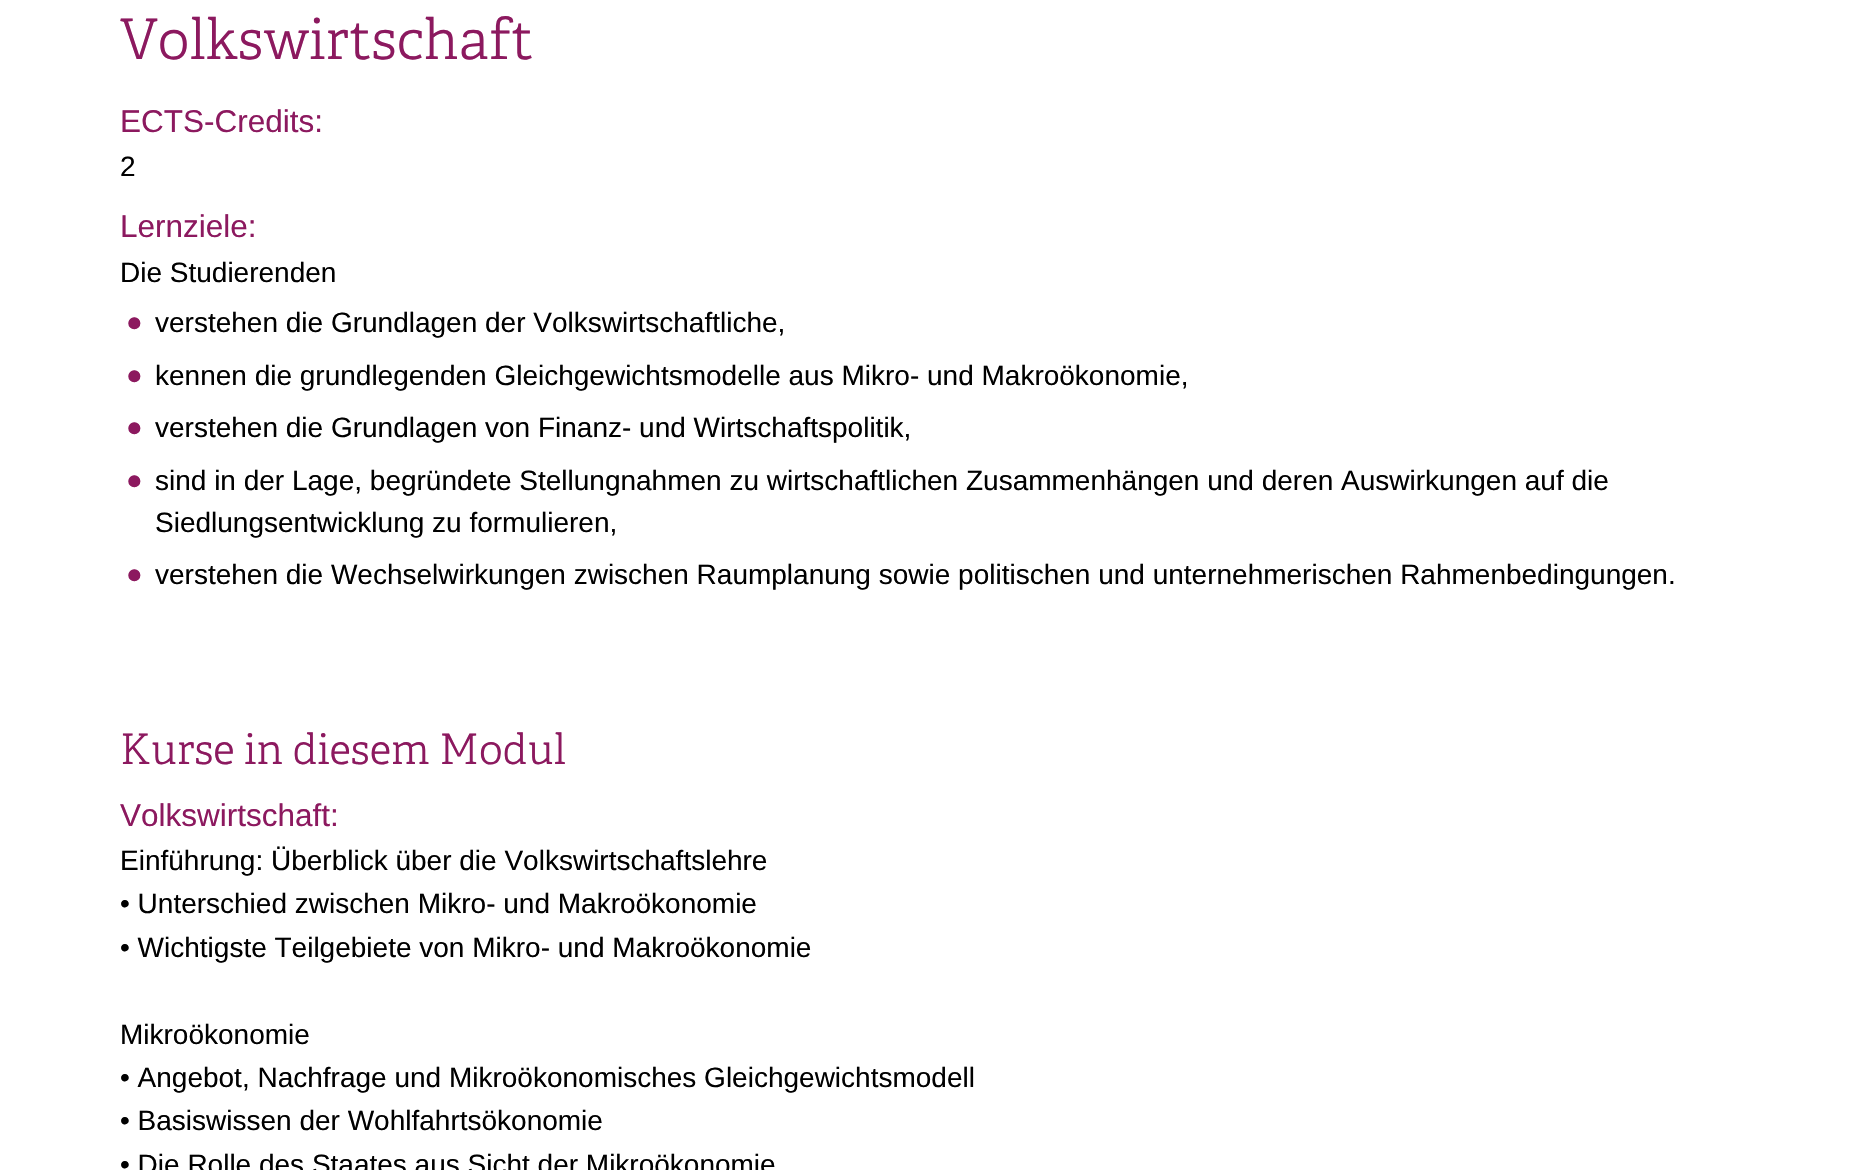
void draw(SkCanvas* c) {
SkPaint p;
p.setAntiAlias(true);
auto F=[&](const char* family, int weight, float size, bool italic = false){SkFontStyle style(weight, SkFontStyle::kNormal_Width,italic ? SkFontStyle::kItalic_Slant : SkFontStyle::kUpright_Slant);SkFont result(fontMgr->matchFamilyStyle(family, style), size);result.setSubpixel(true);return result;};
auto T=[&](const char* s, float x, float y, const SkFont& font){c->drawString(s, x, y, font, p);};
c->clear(0xffffffff);
auto f1 = F("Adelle",300,56);
p.setColor(0xff8c195f);
T("Volkswirtschaft",120,59,f1);
auto f2 = F("Liberation Sans",400,31.5);
T("ECTS-Credits:",120,132,f2);
auto f3 = F("Liberation Sans",400,28);
p.setColor(0xff000000);
T("2",120,176,f3);
p.setColor(0xff8c195f);
T("Lernziele:",120,237,f2);
p.setColor(0xff000000);
T("Die Studierenden",120,282,f3);
auto f4 = F("Liberation Sans",700,42);
p.setColor(0xff8c195f);
T("•",127,337,f4);
p.setColor(0xff000000);
T("verstehen die Grundlagen der Volkswirtschaftliche,",155,332,f3);
p.setColor(0xff8c195f);
T("•",127,390,f4);
p.setColor(0xff000000);
T("kennen die grundlegenden Gleichgewichtsmodelle aus Mikro- und Makroökonomie,",155,385,f3);
p.setColor(0xff8c195f);
T("•",127,442,f4);
p.setColor(0xff000000);
T("verstehen die Grundlagen von Finanz- und Wirtschaftspolitik,",155,437,f3);
p.setColor(0xff8c195f);
T("•",127,495,f4);
p.setColor(0xff000000);
T("sind in der Lage, begründete Stellungnahmen zu wirtschaftlichen Zusammenhängen und deren Auswirkungen auf die",155,490,f3);
T("Siedlungsentwicklung zu formulieren,",155,532,f3);
p.setColor(0xff8c195f);
T("•",127,589,f4);
p.setColor(0xff000000);
T("verstehen die Wechselwirkungen zwischen Raumplanung sowie politischen und unternehmerischen Rahmenbedingungen.",155,584,f3);
auto f5 = F("Adelle",300,42);
p.setColor(0xff8c195f);
T("Kurse in diesem Modul",120,764,f5);
T("Volkswirtschaft:",120,826,f2);
p.setColor(0xff000000);
T("Einführung: Überblick über die Volkswirtschaftslehre",120,870,f3);
T("• Unterschied zwischen Mikro- und Makroökonomie",120,913,f3);
T("• Wichtigste Teilgebiete von Mikro- und Makroökonomie",120,957,f3);
T("Mikroökonomie",120,1044,f3);
T("• Angebot, Nachfrage und Mikroökonomisches Gleichgewichtsmodell",120,1087,f3);
T("• Basiswissen der Wohlfahrtsökonomie",120,1130,f3);
T("• Die Rolle des Staates aus Sicht der Mikroökonomie",120,1174,f3);
}
